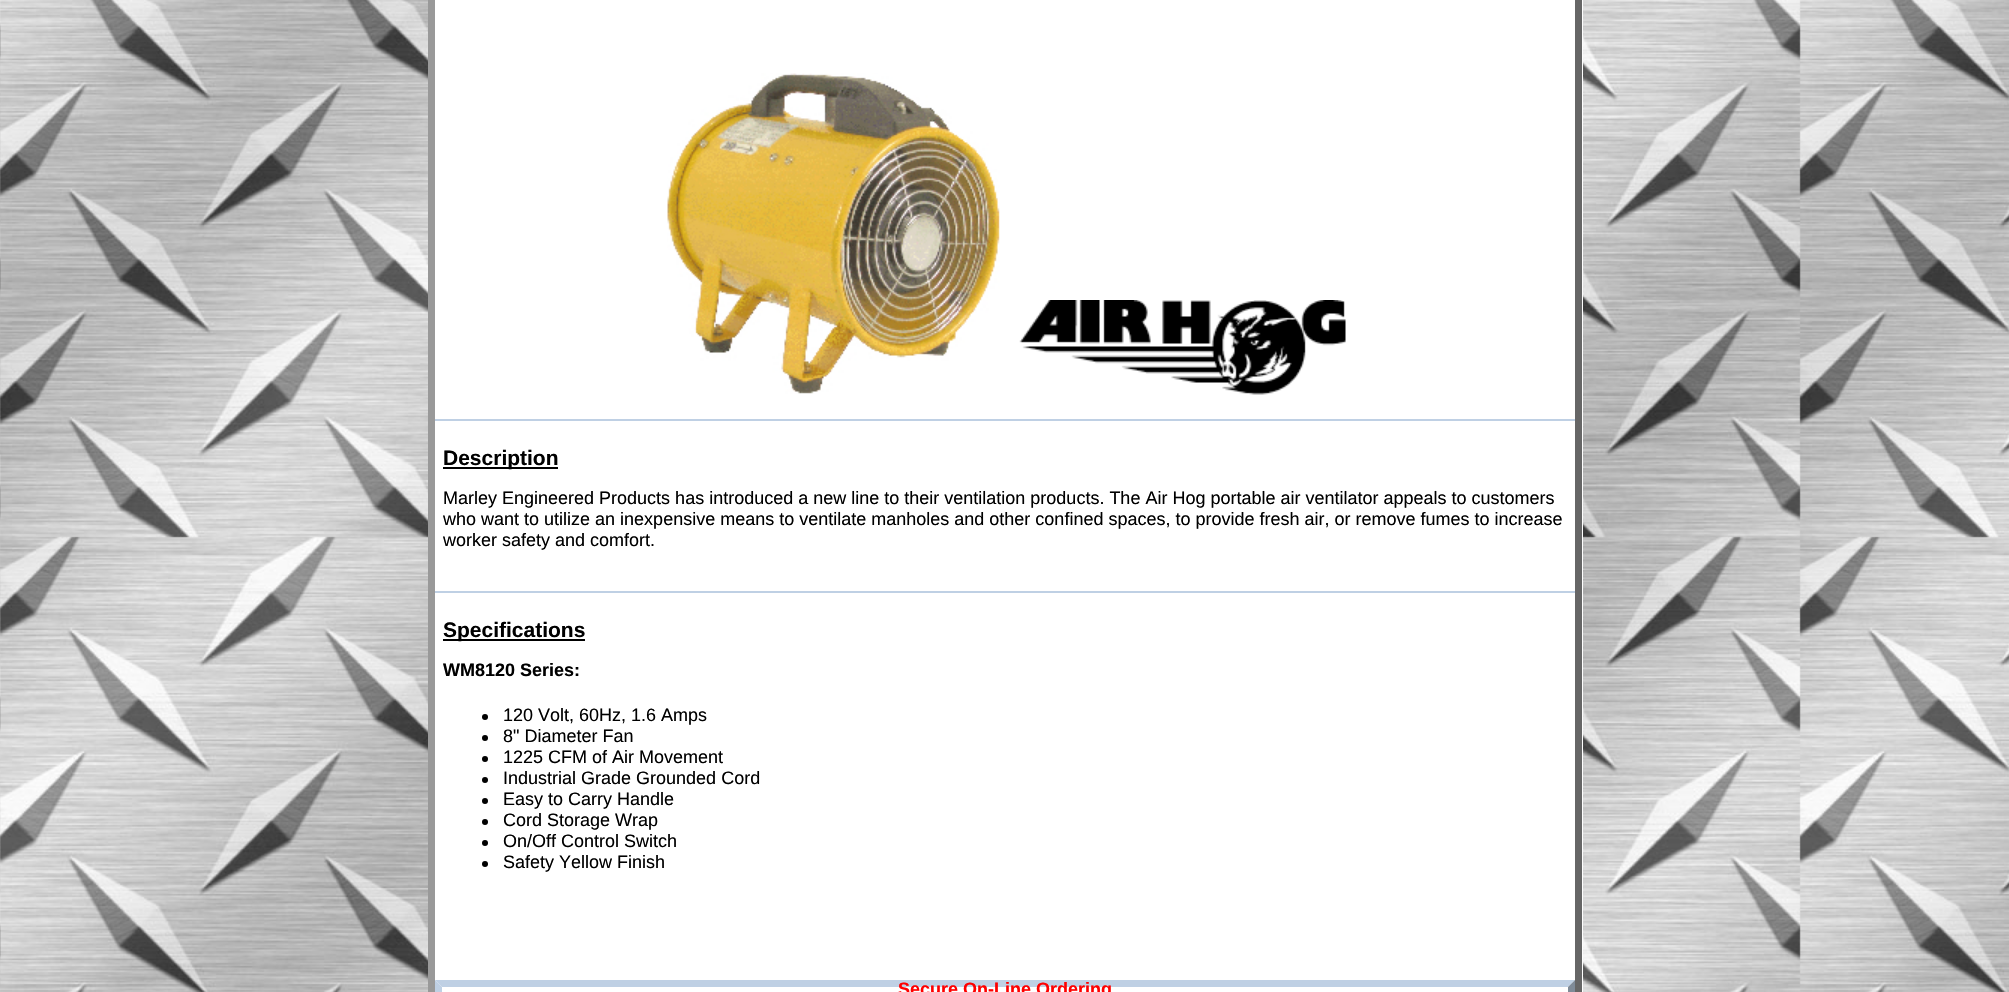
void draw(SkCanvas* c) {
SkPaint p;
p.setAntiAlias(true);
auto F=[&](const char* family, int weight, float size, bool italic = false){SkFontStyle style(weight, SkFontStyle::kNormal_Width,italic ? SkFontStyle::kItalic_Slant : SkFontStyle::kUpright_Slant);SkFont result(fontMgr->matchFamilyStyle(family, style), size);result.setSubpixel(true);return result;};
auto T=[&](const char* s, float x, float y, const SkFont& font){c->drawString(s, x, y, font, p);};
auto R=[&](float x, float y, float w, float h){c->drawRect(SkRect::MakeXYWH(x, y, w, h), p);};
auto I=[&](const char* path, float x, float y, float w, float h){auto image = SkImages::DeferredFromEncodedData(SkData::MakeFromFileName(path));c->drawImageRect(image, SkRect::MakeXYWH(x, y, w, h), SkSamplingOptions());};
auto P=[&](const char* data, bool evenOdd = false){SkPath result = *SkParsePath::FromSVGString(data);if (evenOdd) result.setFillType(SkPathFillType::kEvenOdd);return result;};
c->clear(0xffffffff);
I("1.png",0,0,2009,992);
p.setColor(0xffffffff);
R(435,0,1148,992);
p.setColor(0xff666666);
c->drawPath(P("M1582-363v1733l-7-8v-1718z"),p);
p.setColor(0xff999999);
c->drawPath(P("M428 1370v-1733l7 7v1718z"),p);
I("2.png",667,73,333,321);
I("3.png",1019,300,327,95);
p.setColor(0xffbfd0e4);
R(435,419,1140,2);
p.setColor(0xff000000);
R(443,467,115,2);
auto f1 = F("Liberation Sans",700,21);
T("Description",443,465,f1);
auto f2 = F("Liberation Sans",400,18);
T("Marley Engineered Products has introduced a new line to their ventilation products. The Air Hog portable air ventilator appeals to customers",443,504,f2);
T("who want to utilize an inexpensive means to ventilate manholes and other confined spaces, to provide fresh air, or remove fumes to increase",443,525,f2);
T("worker safety and comfort.",443,546,f2);
p.setColor(0xffbfd0e4);
R(435,591,1140,2);
p.setColor(0xff000000);
R(443,639,142,2);
T("Specifications",443,637,f1);
auto f3 = F("Liberation Sans",700,18);
T("WM8120 Series:",443,676,f3);
c->drawCircle(485,717,3,p);
T("120 Volt, 60Hz, 1.6 Amps",503,721,f2);
c->drawCircle(485,738,3,p);
T("8\" Diameter Fan",503,742,f2);
c->drawCircle(485,759,3,p);
T("1225 CFM of Air Movement",503,763,f2);
c->drawCircle(485,780,3,p);
T("Industrial Grade Grounded Cord",503,784,f2);
c->drawCircle(485,801,3,p);
T("Easy to Carry Handle",503,805,f2);
c->drawCircle(485,822,3,p);
T("Cord Storage Wrap",503,826,f2);
c->drawCircle(485,843,3,p);
T("On/Off Control Switch",503,847,f2);
c->drawCircle(485,864,3,p);
T("Safety Yellow Finish",503,868,f2);
p.setColor(0xffbfd0e4);
c->drawPath(P("M435 980h1140l-7 7h-1126z"),p);
p.setColor(0xff7f8b98);
c->drawPath(P("M1575 980v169l-7-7v-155z"),p);
p.setColor(0xffbfd0e4);
c->drawPath(P("M435 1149v-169l7 7v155z"),p);
p.setColor(0xffff0000);
T("Secure On-Line Ordering",898,995,f3);
}
